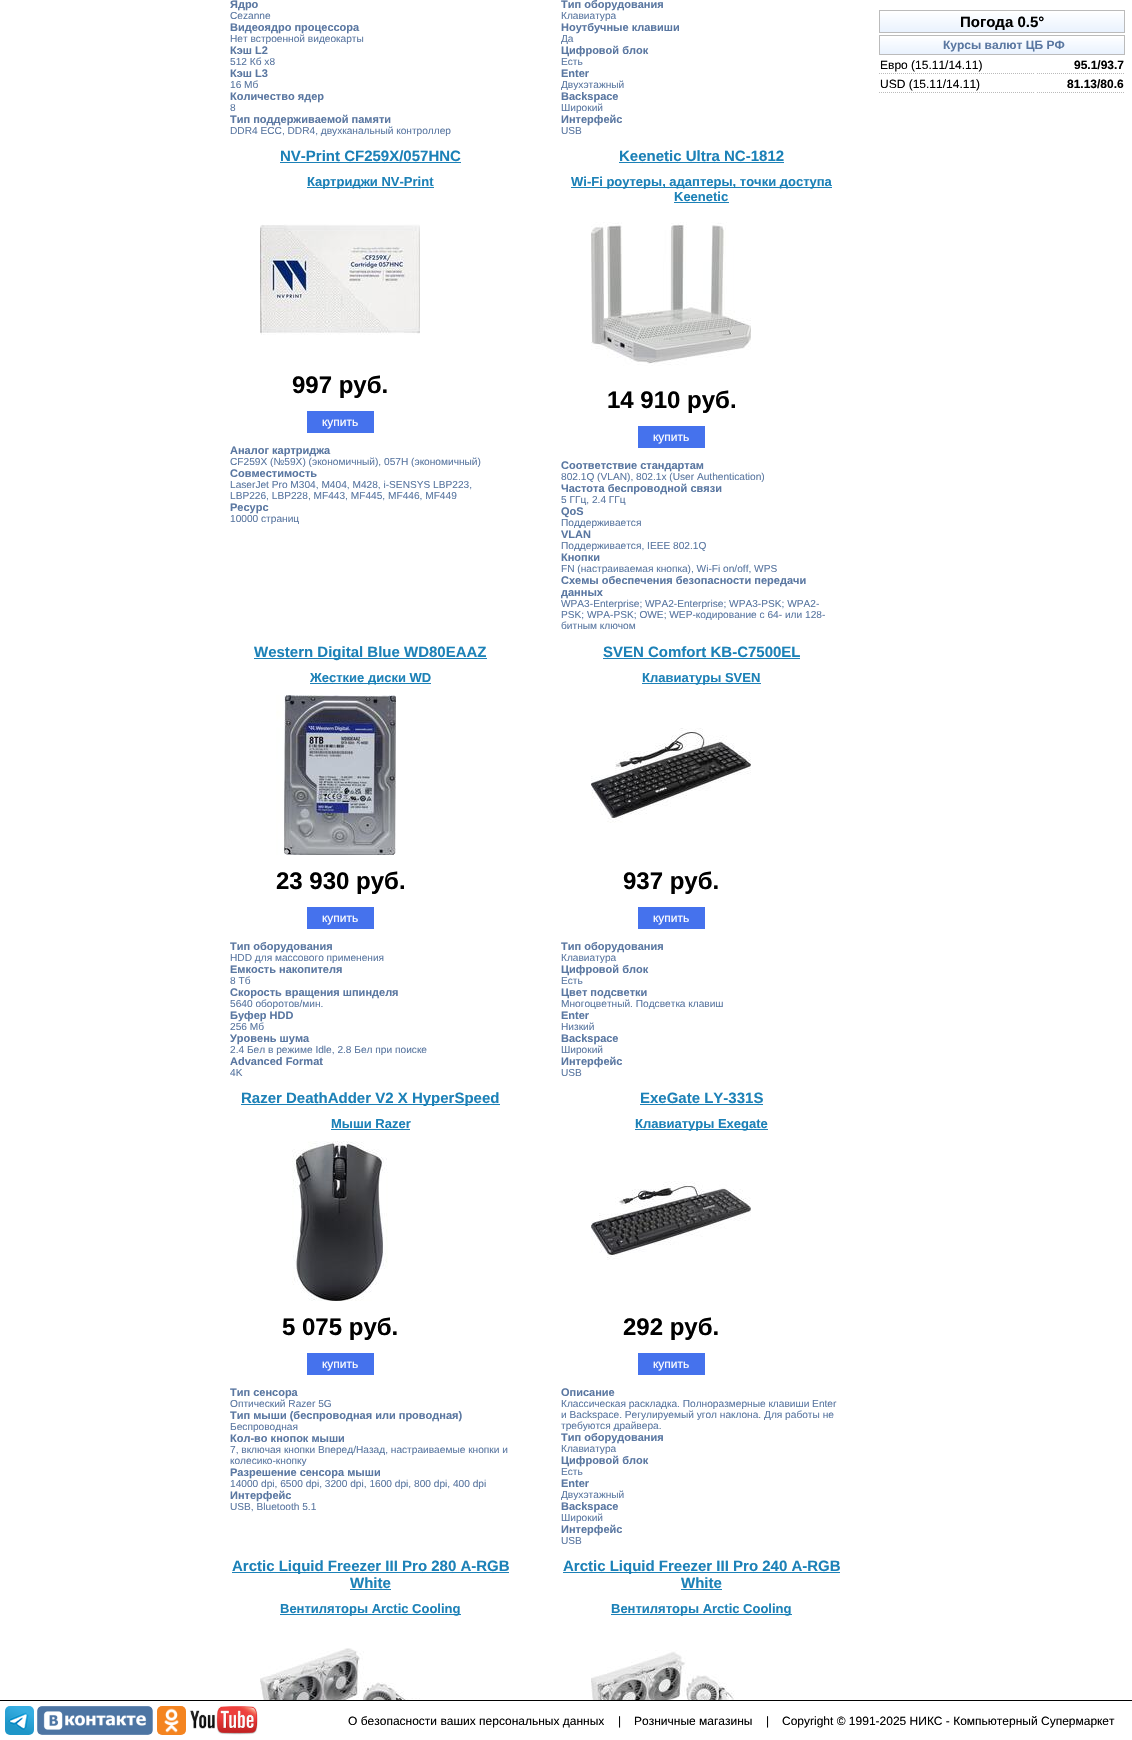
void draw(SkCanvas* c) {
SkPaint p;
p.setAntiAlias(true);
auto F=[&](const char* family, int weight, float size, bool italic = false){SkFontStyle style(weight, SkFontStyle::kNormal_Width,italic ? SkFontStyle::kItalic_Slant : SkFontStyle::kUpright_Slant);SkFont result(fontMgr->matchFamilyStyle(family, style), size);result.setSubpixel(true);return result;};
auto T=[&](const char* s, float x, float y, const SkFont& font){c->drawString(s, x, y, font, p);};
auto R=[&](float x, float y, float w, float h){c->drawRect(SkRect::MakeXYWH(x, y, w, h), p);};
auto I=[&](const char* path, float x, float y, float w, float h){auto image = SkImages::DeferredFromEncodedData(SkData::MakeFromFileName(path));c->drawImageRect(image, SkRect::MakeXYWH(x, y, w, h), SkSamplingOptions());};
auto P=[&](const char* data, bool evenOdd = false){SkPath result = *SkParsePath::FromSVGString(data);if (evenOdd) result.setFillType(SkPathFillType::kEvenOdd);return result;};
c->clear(0xffffffff);
auto f1 = F("Liberation Sans",700,11);
p.setColor(0xff5a77a1);
T("Ядро",230,8,f1);
auto f2 = F("Liberation Sans",400,10.15);
T("Cezanne",230,19,f2);
T("Видеоядро процессора",230,31,f1);
T("Нет встроенной видеокарты",230,42,f2);
T("Кэш L2",230,54,f1);
T("512 Кб x8",230,65,f2);
T("Кэш L3",230,77,f1);
T("16 Мб",230,88,f2);
T("Количество ядер",230,100,f1);
T("8",230,111,f2);
T("Тип поддерживаемой памяти",230,123,f1);
T("DDR4 ECC, DDR4, двухканальный контроллер",230,134,f2);
T("Тип оборудования",561,8,f1);
T("Клавиатура",561,19,f2);
T("Ноутбучные клавиши",561,31,f1);
T("Да",561,42,f2);
T("Цифровой блок",561,54,f1);
T("Есть",561,65,f2);
T("Enter",561,77,f1);
T("Двухэтажный",561,88,f2);
T("Backspace",561,100,f1);
T("Широкий",561,111,f2);
T("Интерфейс",561,123,f1);
T("USB",561,134,f2);
auto f3 = F("Liberation Sans",700,15);
p.setColor(0xff1c81b7);
T("NV-Print CF259X/057HNC",280,161,f3);
R(280,162,181,1);
R(307,187,127,1);
auto f4 = F("Liberation Sans",700,13);
T("Картриджи NV-Print",307,186,f4);
I("1.png",260,224,160,111);
auto f5 = F("Liberation Sans",700,24);
p.setColor(0xff000000);
T("997 руб.",292,393,f5);
p.setColor(0xff4572ed);
R(307,411,67,22);
auto f6 = F("Liberation Sans",400,12);
p.setColor(0xffffffff);
T("купить",322,426,f6);
p.setColor(0xff5a77a1);
T("Аналог картриджа",230,454,f1);
T("CF259X (№59X) (экономичный), 057H (экономичный)",230,465,f2);
T("Совместимость",230,477,f1);
T("LaserJet Pro M304, M404, M428, i-SENSYS LBP223,",230,488,f2);
T("LBP226, LBP228, MF443, MF445, MF446, MF449",230,499,f2);
T("Ресурс",230,511,f1);
T("10000 страниц",230,522,f2);
p.setColor(0xff1c81b7);
T("Keenetic Ultra NC-1812",619,161,f3);
R(619,162,165,1);
R(571,187,261,1);
T("Wi-Fi роутеры, адаптеры, точки доступа",571,186,f4);
T("Keenetic",674,201,f4);
R(674,202,55,1);
I("2.png",591,222,160,144);
p.setColor(0xff000000);
T("14 910 руб.",607,408,f5);
p.setColor(0xff4572ed);
R(638,426,67,22);
p.setColor(0xffffffff);
T("купить",653,441,f6);
p.setColor(0xff5a77a1);
T("Соответствие стандартам",561,469,f1);
T("802.1Q (VLAN), 802.1x (User Authentication)",561,480,f2);
T("Частота беспроводной связи",561,492,f1);
T("5 ГГц, 2.4 ГГц",561,503,f2);
T("QoS",561,515,f1);
T("Поддерживается",561,526,f2);
T("VLAN",561,538,f1);
T("Поддерживается, IEEE 802.1Q",561,549,f2);
T("Кнопки",561,561,f1);
T("FN (настраиваемая кнопка), Wi-Fi on/off, WPS",561,572,f2);
T("Схемы обеспечения безопасности передачи",561,584,f1);
T("данных",561,596,f1);
T("WPA3-Enterprise; WPA2-Enterprise; WPA3-PSK; WPA2-",561,607,f2);
T("PSK; WPA-PSK; OWE; WEP-кодирование с 64- или 128-",561,618,f2);
T("битным ключом",561,629,f2);
p.setColor(0xff1c81b7);
R(254,658,233,1);
T("Western Digital Blue WD80EAAZ",254,657,f3);
R(310,683,121,1);
T("Жесткие диски WD",310,682,f4);
I("3.png",276,695,120,160);
p.setColor(0xff000000);
T("23 930 руб.",276,889,f5);
p.setColor(0xff4572ed);
R(307,907,67,22);
p.setColor(0xffffffff);
T("купить",322,922,f6);
p.setColor(0xff5a77a1);
T("Тип оборудования",230,950,f1);
T("HDD для массового применения",230,961,f2);
T("Емкость накопителя",230,973,f1);
T("8 Тб",230,984,f2);
T("Скорость вращения шпинделя",230,996,f1);
T("5640 оборотов/мин.",230,1007,f2);
T("Буфер HDD",230,1019,f1);
T("256 Мб",230,1030,f2);
T("Уровень шума",230,1042,f1);
T("2.4 Бел в режиме Idle, 2.8 Бел при поиске",230,1053,f2);
T("Advanced Format",230,1065,f1);
T("4K",230,1076,f2);
p.setColor(0xff1c81b7);
T("SVEN Comfort KB-C7500EL",603,657,f3);
R(603,658,197,1);
R(642,683,119,1);
T("Клавиатуры SVEN",642,682,f4);
I("4.png",591,728,160,95);
p.setColor(0xff000000);
T("937 руб.",623,889,f5);
p.setColor(0xff4572ed);
R(638,907,67,22);
p.setColor(0xffffffff);
T("купить",653,922,f6);
p.setColor(0xff5a77a1);
T("Тип оборудования",561,950,f1);
T("Клавиатура",561,961,f2);
T("Цифровой блок",561,973,f1);
T("Есть",561,984,f2);
T("Цвет подсветки",561,996,f1);
T("Многоцветный. Подсветка клавиш",561,1007,f2);
T("Enter",561,1019,f1);
T("Низкий",561,1030,f2);
T("Backspace",561,1042,f1);
T("Широкий",561,1053,f2);
T("Интерфейс",561,1065,f1);
T("USB",561,1076,f2);
p.setColor(0xff1c81b7);
R(241,1104,259,1);
T("Razer DeathAdder V2 X HyperSpeed",241,1103,f3);
T("Мыши Razer",331,1128,f4);
R(331,1129,79,1);
I("5.png",292,1141,96,160);
p.setColor(0xff000000);
T("5 075 руб.",282,1335,f5);
p.setColor(0xff4572ed);
R(307,1353,67,22);
p.setColor(0xffffffff);
T("купить",322,1368,f6);
p.setColor(0xff5a77a1);
T("Тип сенсора",230,1396,f1);
T("Оптический Razer 5G",230,1407,f2);
T("Тип мыши (беспроводная или проводная)",230,1419,f1);
T("Беспроводная",230,1430,f2);
T("Кол-во кнопок мыши",230,1442,f1);
T("7, включая кнопки Вперед/Назад, настраиваемые кнопки и",230,1453,f2);
T("колесико-кнопку",230,1464,f2);
T("Разрешение сенсора мыши",230,1476,f1);
T("14000 dpi, 6500 dpi, 3200 dpi, 1600 dpi, 800 dpi, 400 dpi",230,1487,f2);
T("Интерфейс",230,1499,f1);
T("USB, Bluetooth 5.1",230,1510,f2);
p.setColor(0xff1c81b7);
T("ExeGate LY-331S",640,1103,f3);
R(640,1104,123,1);
R(635,1129,133,1);
T("Клавиатуры Exegate",635,1128,f4);
I("6.png",591,1181,160,79);
p.setColor(0xff000000);
T("292 руб.",623,1335,f5);
p.setColor(0xff4572ed);
R(638,1353,67,22);
p.setColor(0xffffffff);
T("купить",653,1368,f6);
p.setColor(0xff5a77a1);
T("Описание",561,1396,f1);
T("Классическая раскладка. Полноразмерные клавиши Enter",561,1407,f2);
T("и Backspace. Регулируемый угол наклона. Для работы не",561,1418,f2);
T("требуются драйвера.",561,1429,f2);
T("Тип оборудования",561,1441,f1);
T("Клавиатура",561,1452,f2);
T("Цифровой блок",561,1464,f1);
T("Есть",561,1475,f2);
T("Enter",561,1487,f1);
T("Двухэтажный",561,1498,f2);
T("Backspace",561,1510,f1);
T("Широкий",561,1521,f2);
T("Интерфейс",561,1533,f1);
T("USB",561,1544,f2);
p.setColor(0xff1c81b7);
R(232,1572,277,1);
T("Arctic Liquid Freezer III Pro 280 A-RGB",232,1571,f3);
T("White",350,1588,f3);
R(350,1589,41,1);
R(280,1614,181,1);
T("Вентиляторы Arctic Cooling",280,1613,f4);
I("7.png",260,1648,160,52);
R(563,1572,277,1);
T("Arctic Liquid Freezer III Pro 240 A-RGB",563,1571,f3);
T("White",681,1588,f3);
R(681,1589,41,1);
R(611,1614,181,1);
T("Вентиляторы Arctic Cooling",611,1613,f4);
I("8.png",591,1650,160,50);
{
const SkColor colors[] = {0xffe9f2fe,0xffffffff};
const float stops[] = {0,1};
const SkPoint ends[] = {{1002,32}, {1002,11}};
p.setShader(SkGradientShader::MakeLinear(ends, colors, stops, 2, SkTileMode::kClamp));
p.setAlpha(255);
}
R(880,13,244,19);
p.setStroke(true);
p.setStrokeWidth(1);
p.setShader(nullptr);
p.setColor(0xffbbbbbb);
c->drawRect(SkRect::MakeXYWH(879.5,10.5,245,22),p);
p.setStroke(false);
p.setColor(0xff000000);
T("Погода 0.5°",960,27,f3);
{
const SkColor colors[] = {0xffe9f2fe,0xffffffff};
const float stops[] = {0,1};
const SkPoint ends[] = {{1002,54}, {1002,36}};
p.setShader(SkGradientShader::MakeLinear(ends, colors, stops, 2, SkTileMode::kClamp));
p.setAlpha(255);
}
R(880,38,244,16);
p.setStroke(true);
p.setShader(nullptr);
p.setColor(0xffbbbbbb);
c->drawRect(SkRect::MakeXYWH(879.5,35.5,245,19),p);
auto f7 = F("Liberation Sans",700,12);
p.setStroke(false);
p.setColor(0xff5a77a1);
T("Курсы валют ЦБ РФ",943,49,f7);
p.setStroke(true);
p.setColor(0xffbbbbbb);
p.setPathEffect(SkDashPathEffect::Make({{1,1}}, 0));
c->drawPath(P("M879 73.5h156"),p);
p.setPathEffect(nullptr);
p.setStroke(false);
p.setColor(0xff000000);
T("Евро (15.11/14.11)",880,69,f6);
p.setStroke(true);
p.setColor(0xffbbbbbb);
p.setPathEffect(SkDashPathEffect::Make({{1,1}}, 0));
c->drawPath(P("M1037 73.5h88"),p);
p.setPathEffect(nullptr);
p.setStroke(false);
p.setColor(0xff000000);
T("95.1/93.7",1074,69,f7);
p.setStroke(true);
p.setColor(0xffbbbbbb);
p.setPathEffect(SkDashPathEffect::Make({{1,1}}, 0));
c->drawPath(P("M879 92.5h156"),p);
p.setPathEffect(nullptr);
p.setStroke(false);
p.setColor(0xff000000);
T("USD (15.11/14.11)",880,88,f6);
p.setStroke(true);
p.setColor(0xffbbbbbb);
p.setPathEffect(SkDashPathEffect::Make({{1,1}}, 0));
c->drawPath(P("M1037 92.5h88"),p);
p.setPathEffect(nullptr);
p.setStroke(false);
p.setColor(0xff000000);
T("81.13/80.6",1067,88,f7);
R(0,1700,1132,1);
I("9.png",5,1706,29,29);
I("10.png",37,1706,116,29);
I("11.png",157,1706,29,29);
I("12.png",189,1706,69,29);
T("О безопасности ваших персональных данных",348,1725,f6);
T("|",618,1725,f6);
T("Розничные магазины",634,1725,f6);
T("|",766,1725,f6);
T("Copyright © 1991-2025 НИКС - Компьютерный Супермаркет",782,1725,f6);
}
